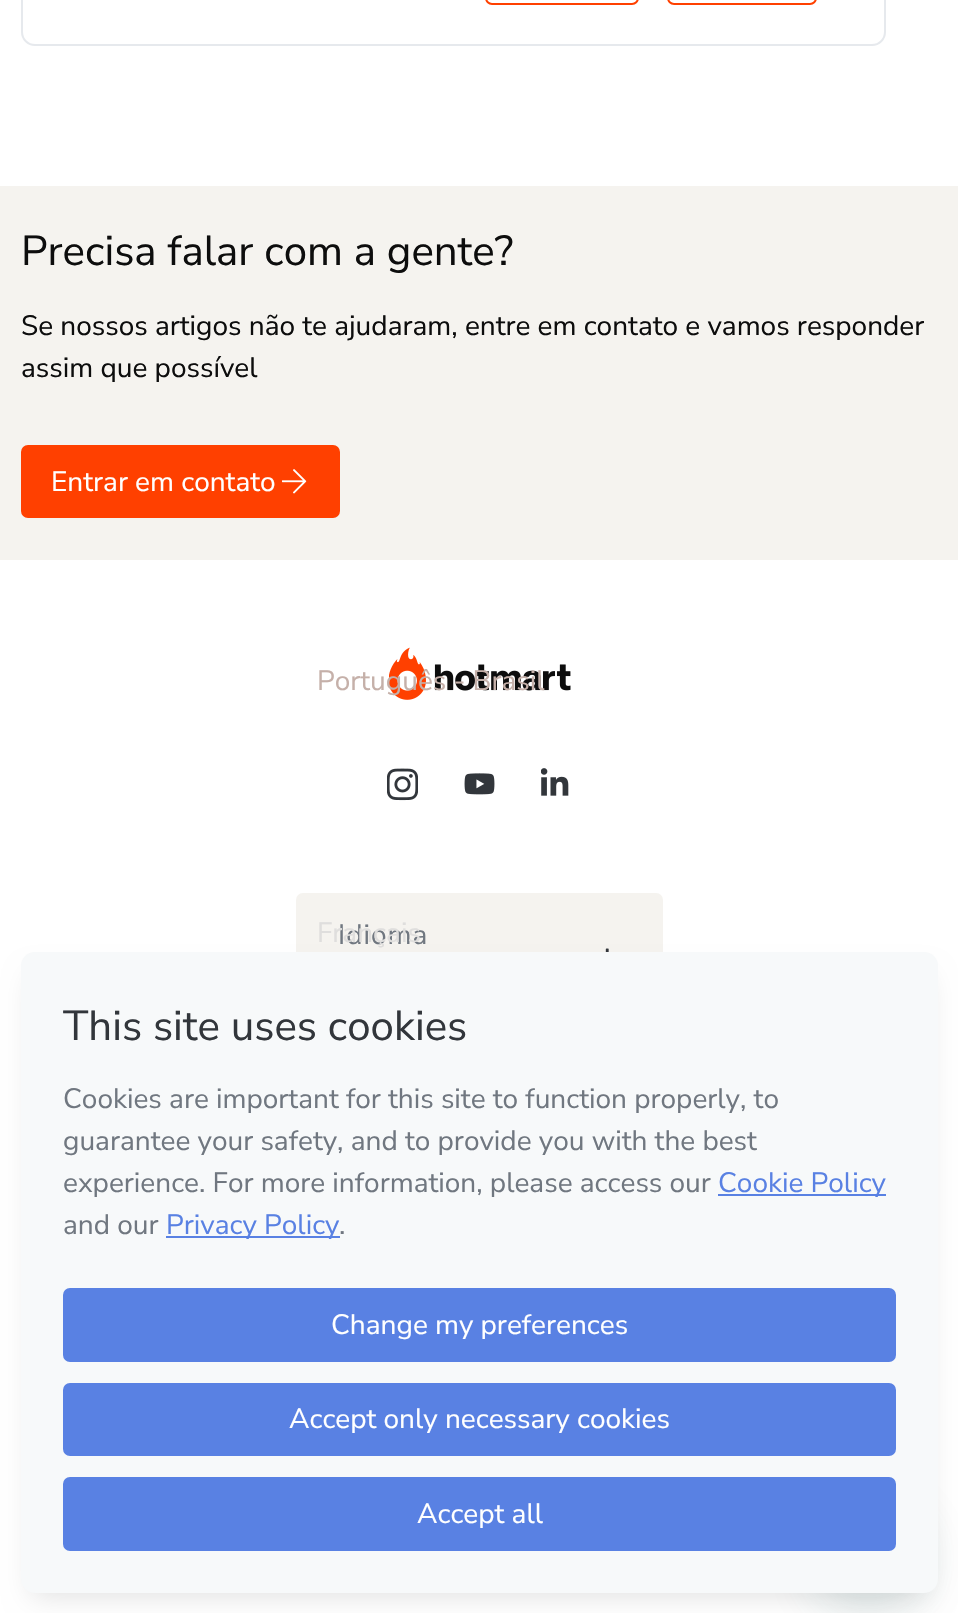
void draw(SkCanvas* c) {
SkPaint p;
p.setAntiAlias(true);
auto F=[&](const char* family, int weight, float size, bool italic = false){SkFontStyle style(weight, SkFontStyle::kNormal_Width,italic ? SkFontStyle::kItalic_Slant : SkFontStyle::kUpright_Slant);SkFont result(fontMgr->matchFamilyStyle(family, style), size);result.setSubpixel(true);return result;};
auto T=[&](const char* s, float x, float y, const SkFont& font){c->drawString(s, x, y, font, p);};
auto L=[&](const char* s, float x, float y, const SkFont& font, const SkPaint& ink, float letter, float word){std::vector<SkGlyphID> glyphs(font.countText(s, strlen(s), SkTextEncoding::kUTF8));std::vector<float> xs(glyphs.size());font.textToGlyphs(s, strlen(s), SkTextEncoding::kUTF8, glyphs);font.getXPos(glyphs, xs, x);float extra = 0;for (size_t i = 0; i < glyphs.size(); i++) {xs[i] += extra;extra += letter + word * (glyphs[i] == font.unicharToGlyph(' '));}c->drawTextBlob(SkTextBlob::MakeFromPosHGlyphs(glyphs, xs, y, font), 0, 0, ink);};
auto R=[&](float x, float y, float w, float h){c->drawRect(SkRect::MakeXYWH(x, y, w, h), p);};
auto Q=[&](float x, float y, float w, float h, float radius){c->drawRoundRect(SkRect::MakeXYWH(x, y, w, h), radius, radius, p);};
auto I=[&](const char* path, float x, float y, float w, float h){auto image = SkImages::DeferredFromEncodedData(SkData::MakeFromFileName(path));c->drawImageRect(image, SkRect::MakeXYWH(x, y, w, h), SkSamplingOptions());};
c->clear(0xffffffff);
p.setStroke(true);
p.setStrokeWidth(2);
p.setColor(0xffe6e9ed);
c->drawRoundRect(SkRect::MakeXYWH(22,-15,863,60),13,13,p);
p.setColor(0xffff4000);
c->drawRoundRect(SkRect::MakeXYWH(486,-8,152,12),6,6,p);
c->drawRoundRect(SkRect::MakeXYWH(668,-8,148,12),6,6,p);
p.setStroke(false);
p.setColor(0xfff5f3ef);
R(0,186,958,374);
auto f1 = F("Nunito Sans",400,42);
p.setColor(0xff0d0d0d);
T("Precisa falar com a gente?",21,265,f1);
auto f2 = F("Nunito Sans",400,28);
T("Se nossos artigos não te ajudaram, entre em contato e vamos responder",21,335,f2);
T("assim que possível",21,377,f2);
p.setColor(0xffff4000);
c->drawRoundRect(SkRect::MakeXYWH(22,446,317,71),6,6,p);
p.setStroke(true);
c->drawRoundRect(SkRect::MakeXYWH(22,446,317,71),6,6,p);
p.setStroke(false);
p.setColor(0xffffffff);
T("Entrar em contato",51,491,f2);
I("1.png",282,469,25,25);
I("2.png",389,647,182,53);
p.setColor(0xfff5f3ef);
Q(296,893,367,131,7);
p.setColor(0xffc5b0a9);
T("Português - Brasil",317,690,f2);
p.setColor(0xff707780);
L("Idioma",338,944,f2,p,1,0);
p.setColor(0xffdfdedd);
T("Français",317,942,f2);
I("3.png",605,948,4,4);
I("4.png",387,768,31,33);
I("5.png",464,773,31,22);
I("6.png",541,768,28,28);
p.setColor(0x1f000000);
p.setMaskFilter(SkMaskFilter::MakeBlur(kNormal_SkBlurStyle, 14));
c->drawRoundRect(SkRect::MakeXYWH(32,977,896,619),4,4,p);
p.setMaskFilter(nullptr);
p.setColor(0x2617494d);
p.setMaskFilter(SkMaskFilter::MakeBlur(kNormal_SkBlurStyle, 26));
c->drawRoundRect(SkRect::MakeXYWH(812,1502,112,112),56,56,p);
p.setMaskFilter(nullptr);
p.setColor(0xfff7f9fa);
Q(21,952,917,641,14);
p.setColor(0xff32363b);
T("This site uses cookies",63,1040,f1);
p.setColor(0xff707780);
T("Cookies are important for this site to function properly, to",63,1108,f2);
T("guarantee your safety, and to provide you with the best",63,1150,f2);
T("experience. For more information, please access our",63,1192,f2);
p.setColor(0xff5981e3);
R(718,1194,168,2);
T("Cookie Policy",718,1192,f2);
p.setColor(0xff707780);
T("and our",63,1234,f2);
p.setColor(0xff5981e3);
R(166,1236,174,2);
T("Privacy Policy",166,1234,f2);
p.setColor(0xff707780);
T(".",339,1234,f2);
p.setColor(0xff5981e3);
c->drawRoundRect(SkRect::MakeXYWH(64,1289,831,72),6,6,p);
p.setStroke(true);
c->drawRoundRect(SkRect::MakeXYWH(64,1289,831,72),6,6,p);
p.setStroke(false);
p.setColor(0xffffffff);
T("Change my preferences",331,1334,f2);
p.setColor(0xff5981e3);
c->drawRoundRect(SkRect::MakeXYWH(64,1384,831,71),6,6,p);
p.setStroke(true);
c->drawRoundRect(SkRect::MakeXYWH(64,1384,831,71),6,6,p);
p.setStroke(false);
p.setColor(0xffffffff);
T("Accept only necessary cookies",289,1428,f2);
p.setColor(0xff5981e3);
c->drawRoundRect(SkRect::MakeXYWH(64,1478,831,72),6,6,p);
p.setStroke(true);
c->drawRoundRect(SkRect::MakeXYWH(64,1478,831,72),6,6,p);
p.setStroke(false);
p.setColor(0xffffffff);
T("Accept all",417,1523,f2);
}
